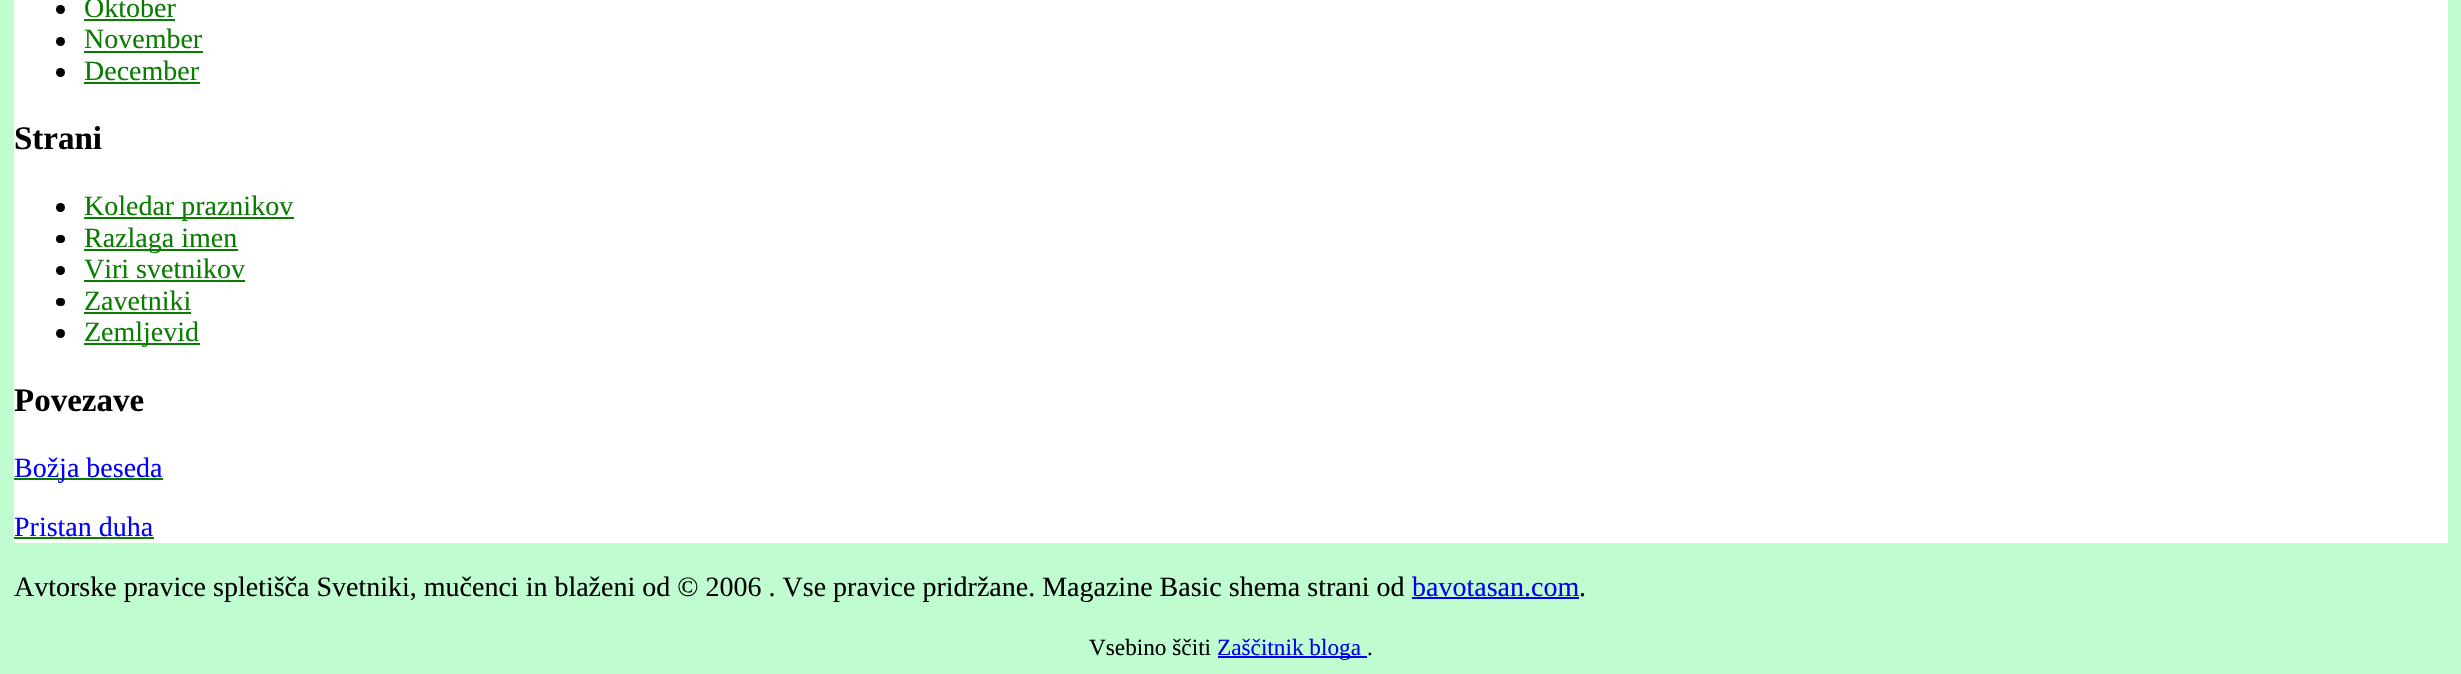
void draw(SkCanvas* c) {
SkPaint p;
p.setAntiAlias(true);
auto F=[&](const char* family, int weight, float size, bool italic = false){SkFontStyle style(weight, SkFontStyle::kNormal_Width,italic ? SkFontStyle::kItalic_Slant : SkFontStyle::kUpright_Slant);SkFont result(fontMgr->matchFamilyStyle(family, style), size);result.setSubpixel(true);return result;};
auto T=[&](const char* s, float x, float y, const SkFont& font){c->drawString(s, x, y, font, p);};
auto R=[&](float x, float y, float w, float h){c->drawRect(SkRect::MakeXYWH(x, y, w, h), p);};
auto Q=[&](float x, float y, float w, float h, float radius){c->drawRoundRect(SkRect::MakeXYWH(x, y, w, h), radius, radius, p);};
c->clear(0xffbffcd0);
p.setColor(0xffffffff);
R(14,0,2434,543);
p.setColor(0xff000000);
c->drawCircle(60.5,9.5,4.5,p);
auto f1 = F("Liberation Serif",400,28);
p.setColor(0xff097c01);
T("Oktober",84,17,f1);
R(84,19,91,2);
p.setColor(0xff000000);
c->drawCircle(60.5,41.5,4.5,p);
p.setColor(0xff097c01);
T("November",84,48,f1);
R(84,51,119,2);
p.setColor(0xff000000);
c->drawCircle(60.5,72.5,4.5,p);
p.setColor(0xff097c01);
T("December",84,80,f1);
R(84,82,116,2);
auto f2 = F("Liberation Serif",700,33);
p.setColor(0xff000000);
T("Strani",14,149,f2);
c->drawCircle(60.5,207.5,4.5,p);
p.setColor(0xff097c01);
R(84,217,210,2);
T("Koledar praznikov",84,215,f1);
p.setColor(0xff000000);
Q(56,235,9,8,4);
p.setColor(0xff097c01);
R(84,249,154,2);
T("Razlaga imen",84,247,f1);
p.setColor(0xff000000);
c->drawCircle(60.5,270.5,4.5,p);
p.setColor(0xff097c01);
T("Viri svetnikov",84,278,f1);
R(84,280,161,2);
p.setColor(0xff000000);
Q(56,298,9,8,4);
p.setColor(0xff097c01);
T("Zavetniki",84,310,f1);
R(84,312,107,2);
p.setColor(0xff000000);
c->drawCircle(60.5,333.5,4.5,p);
p.setColor(0xff097c01);
R(84,343,116,2);
T("Zemljevid",84,341,f1);
p.setColor(0xff000000);
T("Povezave",14,411,f2);
p.setColor(0xff097c01);
R(14,478,149,2);
p.setColor(0xff0000ff);
T("Božja beseda",14,477,f1);
T("Pristan duha",14,536,f1);
p.setColor(0xff097c01);
R(14,537,140,2);
p.setColor(0xff000000);
T("Avtorske pravice spletišča Svetniki, mučenci in blaženi od © 2006 . Vse pravice pridržane. Magazine Basic shema strani od",14,596,f1);
p.setColor(0xff0000ee);
T("bavotasan.com",1412,596,f1);
p.setColor(0xff000000);
T(".",1579,596,f1);
p.setColor(0xff0000ee);
R(1412,597,167,2);
auto f3 = F("Liberation Serif",400,23.25);
p.setColor(0xff000000);
T("Vsebino ščiti",1089,655,f3);
p.setColor(0xff0000ee);
R(1218,656,149,2);
T("Zaščitnik bloga",1217,655,f3);
p.setColor(0xff000000);
T(".",1367,655,f3);
}
